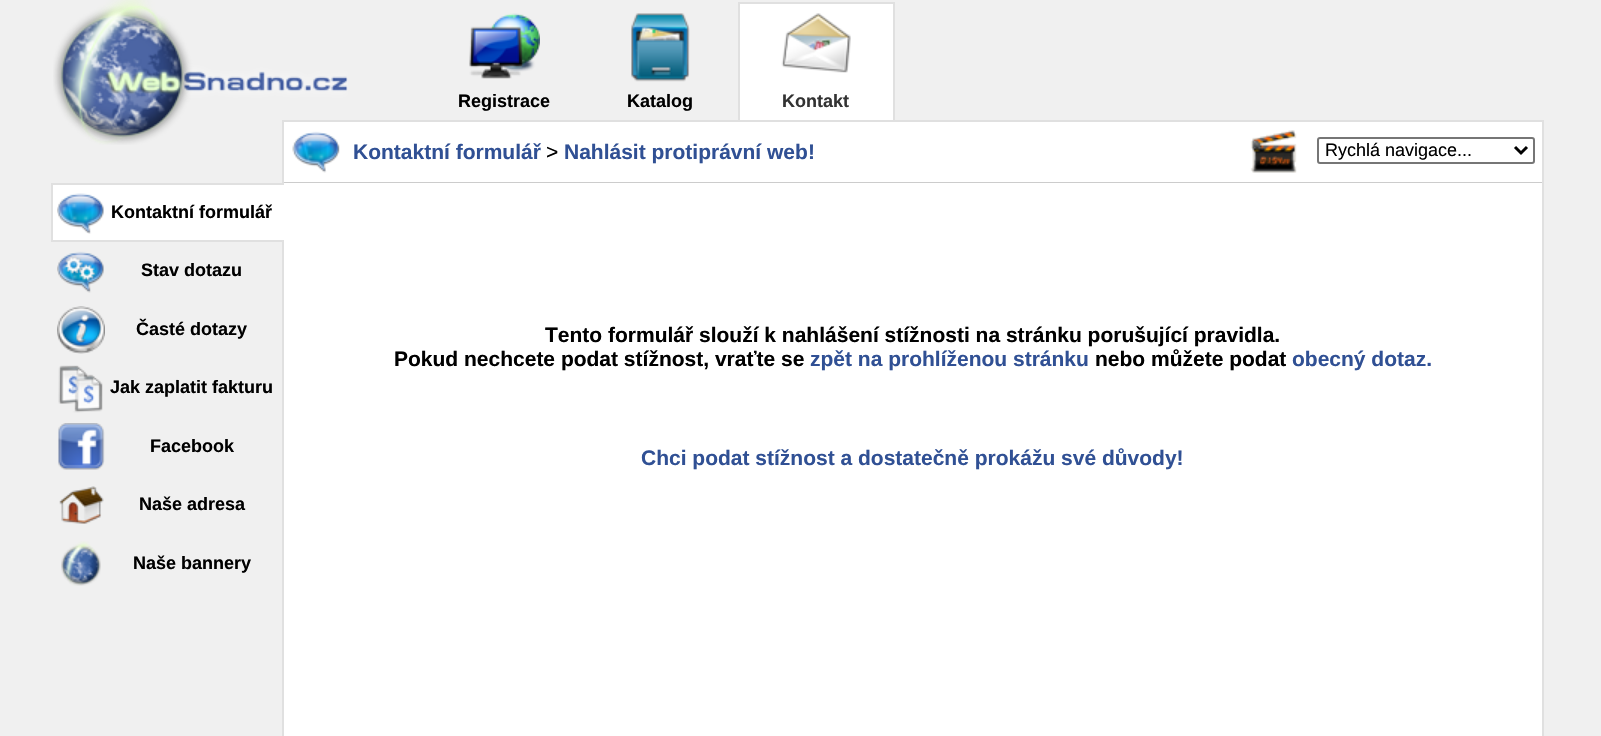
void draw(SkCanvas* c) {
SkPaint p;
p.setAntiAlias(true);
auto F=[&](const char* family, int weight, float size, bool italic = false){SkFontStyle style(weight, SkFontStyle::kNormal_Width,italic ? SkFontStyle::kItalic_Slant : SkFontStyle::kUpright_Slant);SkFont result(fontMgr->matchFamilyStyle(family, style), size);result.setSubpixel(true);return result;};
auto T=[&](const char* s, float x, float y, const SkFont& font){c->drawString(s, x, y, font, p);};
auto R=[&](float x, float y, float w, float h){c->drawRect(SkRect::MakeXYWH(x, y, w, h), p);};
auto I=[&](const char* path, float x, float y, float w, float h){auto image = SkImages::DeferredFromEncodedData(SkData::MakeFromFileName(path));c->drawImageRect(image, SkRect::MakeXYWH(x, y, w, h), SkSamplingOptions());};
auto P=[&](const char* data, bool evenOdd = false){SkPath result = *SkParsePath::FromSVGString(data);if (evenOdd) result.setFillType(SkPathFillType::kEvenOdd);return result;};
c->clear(0xfff0f0f0);
p.setColor(0xffe0e0e0);
R(282,120,2,616);
p.setColor(0xffffffff);
R(284,122,1258,614);
p.setColor(0xffe0e0e0);
R(284,120,1260,2);
I("12.png",292,131,48,42);
I("1.png",53,0,295,145);
I("2.png",469,13,71,66);
auto f1 = F("Liberation Sans",700,18);
p.setColor(0xff000000);
T("Registrace",458,107,f1);
I("3.png",631,13,59,69);
T("Katalog",627,107,f1);
p.setColor(0xffffffff);
R(740,4,153,116);
p.setColor(0xffe0e0e0);
R(738,2,156,2);
R(893,2,2,118);
R(738,2,2,118);
I("4.png",781,13,70,60);
p.setColor(0xff333333);
T("Kontakt",782,107,f1);
p.setColor(0xffffffff);
R(53,185,231,55);
p.setColor(0xffe0e0e0);
R(51,183,233,2);
R(51,240,233,2);
R(51,183,2,59);
I("5.png",57,193,47,41);
p.setColor(0xff000000);
T("Kontaktní formulář",111,218,f1);
I("6.png",57,251,47,42);
T("Stav dotazu",141,276,f1);
I("7.png",57,306,48,48);
T("Časté dotazy",136,335,f1);
I("8.png",58,365,45,48);
T("Jak zaplatit fakturu",110,393,f1);
I("9.png",58,423,47,47);
T("Facebook",150,452,f1);
I("10.png",59,486,45,38);
T("Naše adresa",139,510,f1);
I("11.png",61,541,40,45);
T("Naše bannery",133,569,f1);
p.setColor(0xffe0e0e0);
R(1542,120,2,616);
p.setColor(0xffcccccc);
R(284,182,1258,1);
auto f2 = F("Liberation Sans",700,21);
p.setColor(0xff305094);
T("Kontaktní formulář",353,159,f2);
auto f3 = F("Liberation Sans",400,21);
p.setColor(0xff000000);
T(">",546,159,f3);
p.setColor(0xff305094);
T("Nahlásit protiprávní web!",564,159,f2);
I("13.png",1250,130,47,43);
p.setStroke(true);
p.setStrokeWidth(2);
p.setColor(0xff767676);
c->drawRoundRect(SkRect::MakeXYWH(1318,138,216,25),2,2,p);
p.setStrokeWidth(3);
p.setColor(0xff000000);
c->drawPath(P("M1515 147l6 6l6-6"),p);
auto f4 = F("Liberation Sans",400,18);
p.setStroke(false);
T("Rychlá navigace...",1325,156,f4);
T("Tento formulář slouží k nahlášení stížnosti na stránku porušující pravidla.",545,342,f2);
T("Pokud nechcete podat stížnost, vraťte se",394,366,f2);
p.setColor(0xff305094);
T("zpět na prohlíženou stránku",810,366,f2);
p.setColor(0xff000000);
T("nebo můžete podat",1095,366,f2);
p.setColor(0xff305094);
T("obecný dotaz.",1292,366,f2);
T("Chci podat stížnost a dostatečně prokážu své důvody!",641,465,f2);
}
